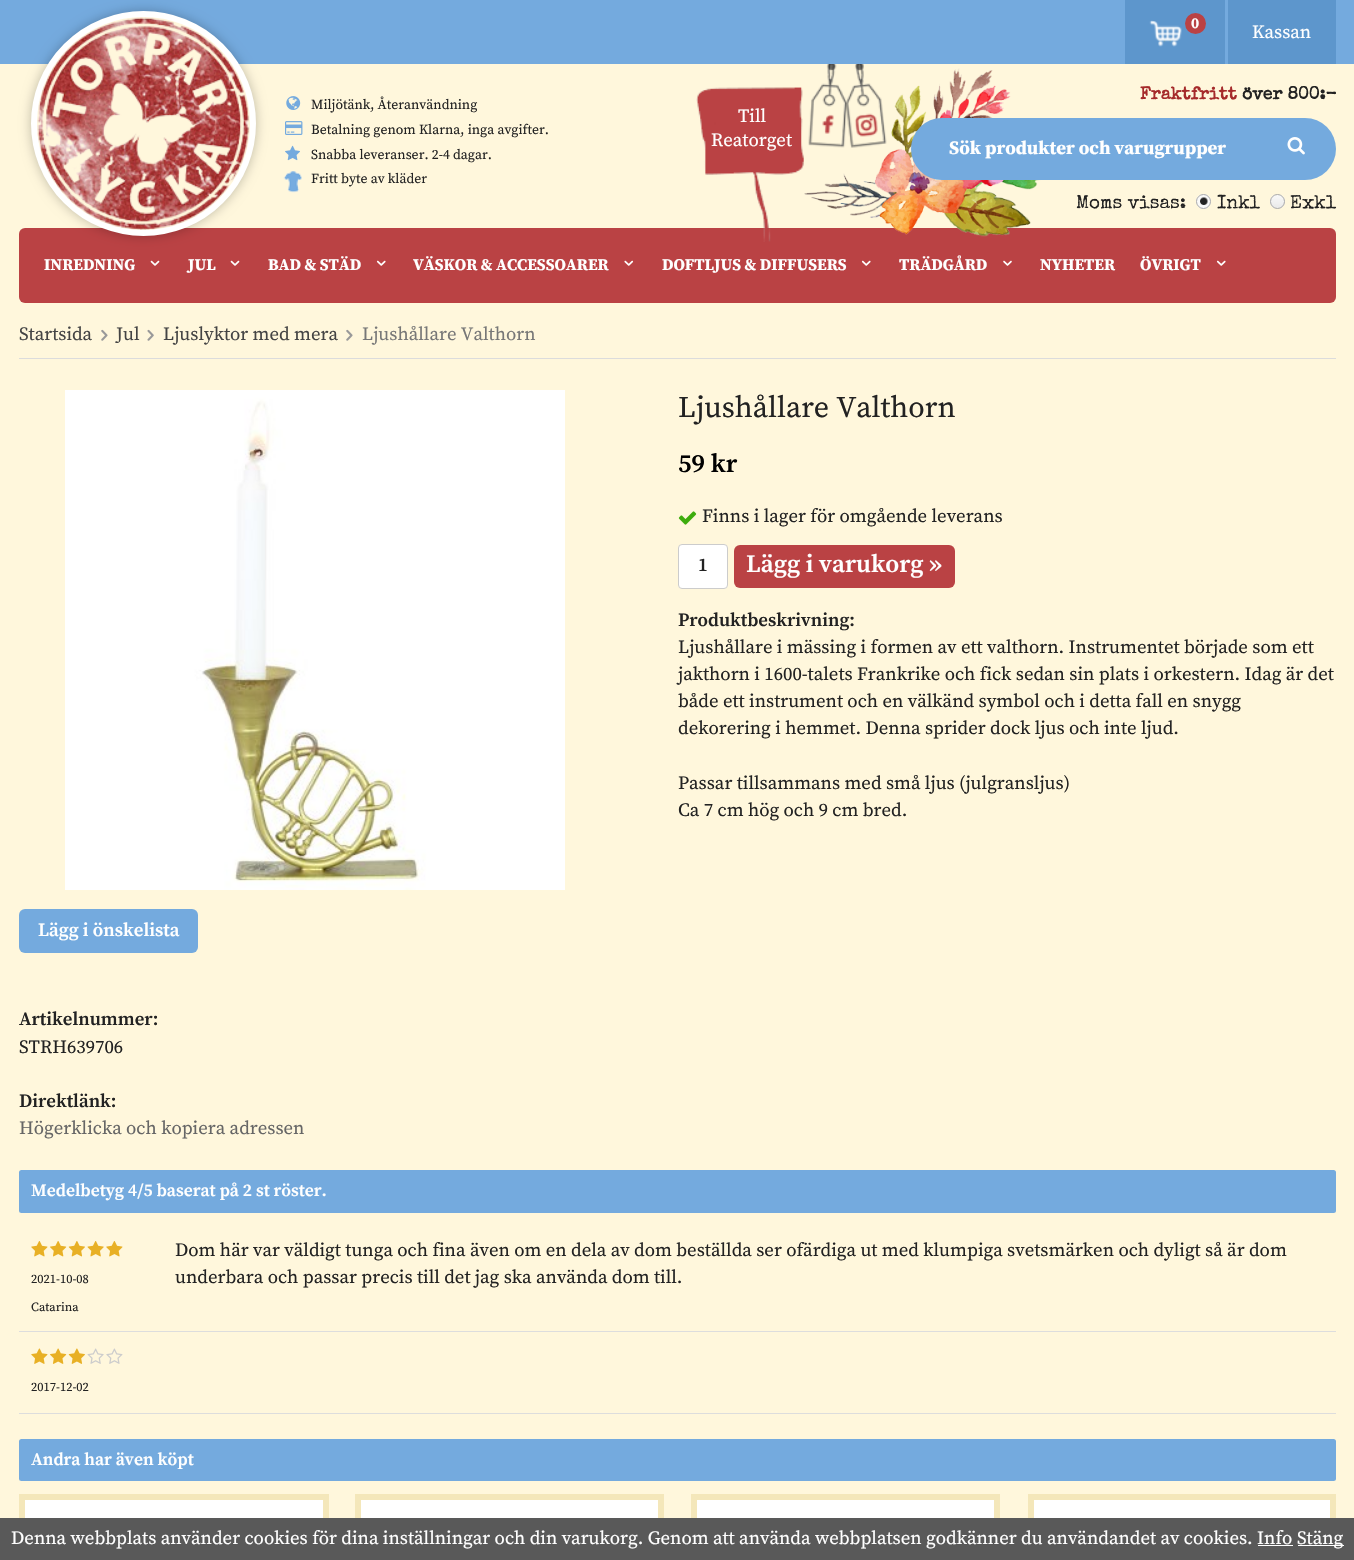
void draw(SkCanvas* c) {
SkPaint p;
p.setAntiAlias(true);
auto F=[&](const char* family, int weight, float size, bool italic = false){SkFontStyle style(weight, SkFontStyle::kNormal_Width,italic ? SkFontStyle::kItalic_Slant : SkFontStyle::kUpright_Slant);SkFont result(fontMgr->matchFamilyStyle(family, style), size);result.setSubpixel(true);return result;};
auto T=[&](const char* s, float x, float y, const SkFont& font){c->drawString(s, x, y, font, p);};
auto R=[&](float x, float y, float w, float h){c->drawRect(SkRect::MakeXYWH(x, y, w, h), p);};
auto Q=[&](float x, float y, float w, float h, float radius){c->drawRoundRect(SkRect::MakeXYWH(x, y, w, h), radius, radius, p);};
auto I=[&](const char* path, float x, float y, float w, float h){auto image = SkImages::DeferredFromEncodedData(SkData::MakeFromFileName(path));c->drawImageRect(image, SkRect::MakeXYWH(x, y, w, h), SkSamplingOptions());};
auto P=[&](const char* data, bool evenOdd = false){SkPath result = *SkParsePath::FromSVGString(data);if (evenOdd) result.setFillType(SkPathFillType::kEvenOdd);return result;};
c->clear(0xfffff7dc);
p.setColor(0xff74aade);
R(0,0,1354,64);
p.setColor(0xff5d96cc);
R(1125,0,100,64);
I("1.png",1149,20,33,27);
p.setColor(0xffba4244);
c->drawCircle(1195.5,23.5,10.5,p);
auto f1 = F("Source Serif Pro",700,15);
p.setColor(0xffffffff);
T("0",1191,28,f1);
p.setColor(0xff5d96cc);
R(1228,0,108,64);
auto f2 = F("Source Serif Pro",400,18.75);
p.setColor(0xffffffff);
T("Kassan",1252,38,f2);
p.setColor(0xffba4244);
Q(19,228,1317,75,6);
p.setColor(0x40000000);
p.setMaskFilter(SkMaskFilter::MakeBlur(kNormal_SkBlurStyle, 6));
c->drawRoundRect(SkRect::MakeXYWH(31,11,225,225),112.5,112.5,p);
p.setMaskFilter(nullptr);
p.setColor(0xfffff7dc);
c->drawCircle(143.5,123.5,109.5,p);
p.setStroke(true);
p.setStrokeWidth(6);
p.setColor(0xffffffff);
c->drawCircle(143.5,123.5,109.5,p);
I("2.png",37,17,213,213);
I("10.png",804,68,237,169);
I("3.png",808,64,39,84);
I("4.png",846,64,41,84);
I("5.png",286,96,15,14);
auto f3 = F("Source Serif Pro",400,13.75);
p.setStroke(false);
p.setColor(0xff222222);
T("Miljötänk, Återanvändning",311,109,f3);
I("6.png",285,121,18,14);
T("Betalning genom Klarna, inga avgifter.",311,134,f3);
I("7.png",285,145,15,16);
T("Snabba leveranser. 2-4 dagar.",311,159,f3);
I("8.png",283,171,19,22);
T("Fritt byte av kläder",311,183,f3);
I("9.png",696,87,108,155);
auto f4 = F("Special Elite",700,17.5);
p.setColor(0xffa52a2a);
T("Fraktfritt",1140,99,f4);
p.setColor(0xff222222);
T("över 800:-",1242,99,f4);
p.setColor(0xffffffff);
T("Till",738,122,f2);
T("Reatorget",711,146,f2);
p.setColor(0xff74aade);
Q(911,118,425,62,31);
auto f5 = F("Source Serif Pro",700,18.75);
p.setColor(0xffffffff);
T("Sök produkter och varugrupper",949,154,f5);
I("11.png",1287,137,18,18);
auto f6 = F("Special Elite",400,18.75);
p.setColor(0xff222222);
T("Moms visas:",1076,208,f6);
p.setColor(0xfff9f9f9);
c->drawCircle(1203.5,201.5,7.5,p);
I("12.png",1200,197,8,8);
p.setStroke(true);
p.setStrokeWidth(1);
p.setColor(0xffa9a9a9);
c->drawCircle(1203.5,201.5,7,p);
p.setStroke(false);
p.setColor(0xff222222);
T("Inkl",1217,208,f6);
c->save();
c->clipPath(P("M1277.5 194c4 0 7.5 3.5 7.5 7.5c0 4-3.5 7.5-7.5 7.5c-4 0-7.5-3.5-7.5-7.5c0-4 3.5-7.5 7.5-7.5z"),true);
{
const SkColor colors[] = {0xfff9f9f9,0xffe9e9e9};
const float stops[] = {0,1};
const SkPoint ends[] = {{1278,195}, {1278,208}};
p.setShader(SkGradientShader::MakeLinear(ends, colors, stops, 2, SkTileMode::kClamp));
p.setAlpha(255);
}
R(1270,195,15,13);
c->restore();
p.setStroke(true);
p.setShader(nullptr);
p.setColor(0xffa9a9a9);
c->drawCircle(1277.5,201.5,7,p);
p.setStroke(false);
p.setColor(0xff222222);
T("Exkl",1290,208,f6);
auto f7 = F("Source Serif Pro",700,16.25);
p.setColor(0xffffffff);
T("INREDNING",44,270,f7);
I("13.png",150,260,10,6);
T("JUL",188,270,f7);
I("13.png",230,260,10,6);
T("BAD & STÄD",268,270,f7);
I("14.png",376,260,10,6);
T("VÄSKOR & ACCESSOARER",413,270,f7);
I("15.png",624,260,10,6);
T("DOFTLJUS & DIFFUSERS",662,270,f7);
I("14.png",861,260,10,6);
T("TRÄDGÅRD",899,270,f7);
I("16.png",1003,260,9,6);
T("NYHETER",1040,270,f7);
T("ÖVRIGT",1140,270,f7);
I("14.png",1216,260,10,6);
p.setColor(0xffdcdcdc);
R(19,358,1317,1);
p.setColor(0xff444444);
T("Startsida",19,340,f2);
I("17.png",101,329,7,12);
T("Jul",116,340,f2);
I("18.png",147,329,7,12);
T("Ljuslyktor med mera",163,340,f2);
I("17.png",346,329,7,12);
p.setColor(0xff777777);
T("Ljushållare Valthorn",362,340,f2);
I("19.png",65,390,500,500);
auto f8 = F("Source Serif Pro",400,30);
p.setColor(0xff222222);
T("Ljushållare Valthorn",678,417,f8);
auto f9 = F("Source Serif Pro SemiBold",600,26);
p.setColor(0xff000000);
T("59 kr",678,472,f9);
I("20.png",678,511,19,14);
p.setColor(0xff222222);
T("Finns i lager för omgående leverans",702,522,f2);
p.setColor(0xffffffff);
c->drawRoundRect(SkRect::MakeXYWH(678.5,544.5,49,44),3.5,3.5,p);
p.setStroke(true);
p.setColor(0xffcccccc);
c->drawRoundRect(SkRect::MakeXYWH(678.5,544.5,49,44),3.5,3.5,p);
auto f10 = F("Source Serif Pro SemiBold",600,18.75);
p.setStroke(false);
p.setColor(0xff222222);
T("1",698,571,f10);
p.setColor(0xffba4244);
Q(734,545,221,43,6);
auto f11 = F("Source Serif Pro SemiBold",600,25);
p.setColor(0xffffffff);
T("Lägg i varukorg »",746,572,f11);
p.setColor(0xff222222);
T("Produktbeskrivning:",678,626,f10);
T("Ljushållare i mässing i formen av ett valthorn. Instrumentet började som ett",678,653,f2);
T("jakthorn i 1600-talets Frankrike och fick sedan sin plats i orkestern. Idag är det",678,680,f2);
T("både ett instrument och en välkänd symbol och i detta fall en snygg",678,707,f2);
T("dekorering i hemmet. Denna sprider dock ljus och inte ljud.",678,734,f2);
T("Passar tillsammans med små ljus (julgransljus)",678,789,f2);
T("Ca 7 cm hög och 9 cm bred.",678,816,f2);
p.setColor(0xff74aade);
Q(19,909,179,44,6);
p.setColor(0xffffffff);
T("Lägg i önskelista",38,936,f10);
p.setColor(0xff222222);
T("Artikelnummer:",19,1025,f10);
T("STRH639706",19,1053,f2);
T("Direktlänk:",19,1107,f10);
p.setColor(0xff666666);
T("Högerklicka och kopiera adressen",19,1134,f2);
p.setColor(0xff74aade);
Q(19,1170,1317,43,2.5);
auto f12 = F("Source Serif Pro SemiBold",600,17.5);
p.setColor(0xffffffff);
T("Medelbetyg 4/5 baserat på 2 st röster.",31,1196,f12);
p.setColor(0xffdddddd);
R(19,1331,1317,1);
p.setColor(0xff222222);
T("Dom här var väldigt tunga och fina även om en dela av dom beställda ser ofärdiga ut med klumpiga svetsmärken och dyligt så är dom",175,1256,f2);
T("underbara och passar precis till det jag ska använda dom till.",175,1283,f2);
I("21.png",31,1241,17,16);
I("22.png",50,1241,17,16);
I("23.png",68,1241,17,16);
I("24.png",87,1241,17,16);
I("21.png",106,1241,17,16);
auto f13 = F("Source Serif Pro",400,12.5);
T("2021-10-08",31,1283,f13);
T("Catarina",31,1311,f13);
p.setColor(0xffdddddd);
R(19,1413,1317,1);
I("25.png",31,1348,17,16);
I("26.png",50,1348,17,16);
I("27.png",68,1348,17,16);
I("28.png",87,1348,17,16);
I("29.png",106,1348,17,16);
p.setColor(0xff222222);
T("2017-12-02",31,1391,f13);
p.setColor(0xff74aade);
Q(19,1439,1317,42,2.5);
p.setColor(0xffffffff);
T("Andra har även köpt",31,1465,f12);
R(25,1500,298,18);
p.setStroke(true);
p.setStrokeWidth(6);
p.setColor(0xfff4e7ba);
c->drawRect(SkRect::MakeXYWH(22,1497,304,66),p);
p.setStroke(false);
p.setColor(0xffffffff);
R(361,1500,297,18);
p.setStroke(true);
p.setColor(0xfff4e7ba);
c->drawRect(SkRect::MakeXYWH(358,1497,303,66),p);
p.setStroke(false);
p.setColor(0xffffffff);
R(697,1500,297,18);
p.setStroke(true);
p.setColor(0xfff4e7ba);
c->drawRect(SkRect::MakeXYWH(694,1497,303,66),p);
p.setStroke(false);
p.setColor(0xffffffff);
R(1034,1500,296,18);
p.setStroke(true);
p.setColor(0xfff4e7ba);
c->drawRect(SkRect::MakeXYWH(1031,1497,302,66),p);
p.setStroke(false);
p.setColor(0xff595959);
R(0,1518,1354,42);
p.setColor(0xffffffff);
T("Denna webbplats använder cookies för dina inställningar och din varukorg. Genom att använda webbplatsen godkänner du användandet av cookies. Info",11,1544,f2);
R(1298,1545,46,1);
T("Stäng",1297,1544,f2);
R(1258,1545,35,1);
}
